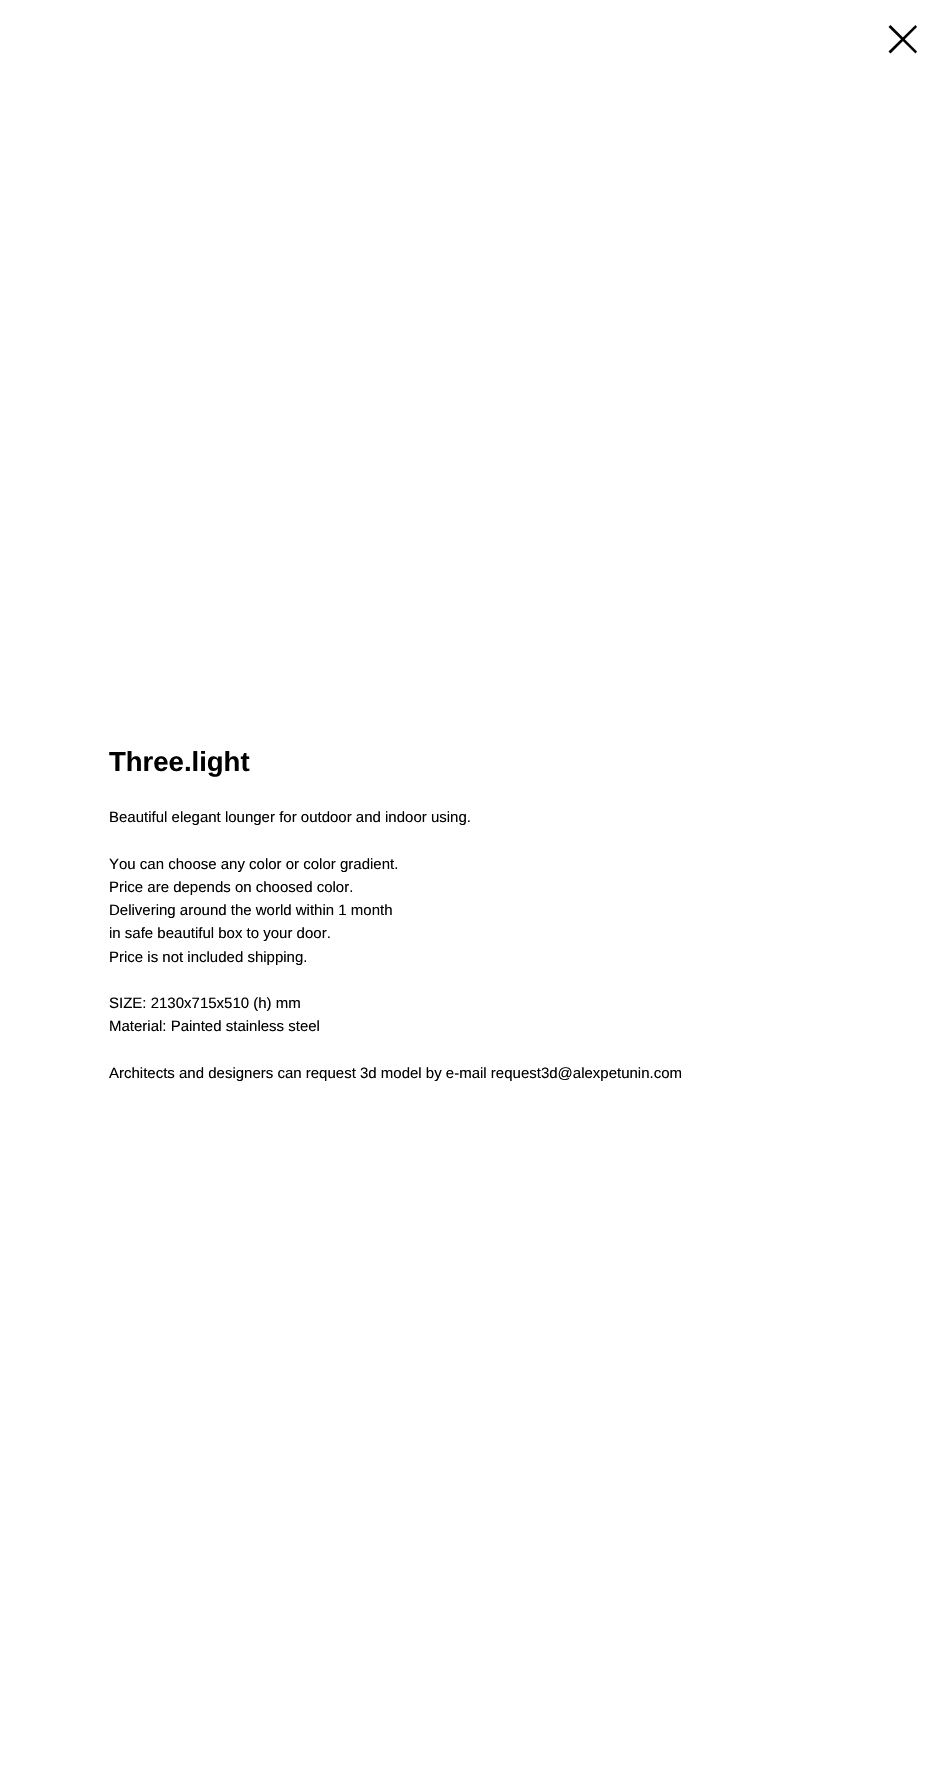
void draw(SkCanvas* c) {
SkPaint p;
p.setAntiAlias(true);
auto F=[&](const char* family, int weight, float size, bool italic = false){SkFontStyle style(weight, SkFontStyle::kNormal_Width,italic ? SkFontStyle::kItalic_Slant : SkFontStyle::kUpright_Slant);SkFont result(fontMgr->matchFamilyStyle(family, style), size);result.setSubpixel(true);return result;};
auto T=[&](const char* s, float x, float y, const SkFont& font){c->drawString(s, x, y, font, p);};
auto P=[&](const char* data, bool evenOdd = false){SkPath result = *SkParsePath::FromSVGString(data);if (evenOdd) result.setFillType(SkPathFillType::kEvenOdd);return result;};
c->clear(0xffffffff);
p.setColor(0xff000000);
c->drawPath(P("M888.5 27l2-2l26.5 26.5l-1.5 2z",true),p);
c->drawPath(P("M915.5 25l1.5 2l-26.5 26.5l-2-2z",true),p);
auto f1 = F("Liberation Sans",700,27.5);
T("Three.light",109,771,f1);
auto f2 = F("Liberation Sans",400,15);
T("Beautiful elegant lounger for outdoor and indoor using.",109,822,f2);
T("You can choose any color or color gradient.",109,869,f2);
T("Price are depends on choosed color.",109,892,f2);
T("Delivering around the world within 1 month",109,915,f2);
T("in safe beautiful box to your door.",109,938,f2);
T("Price is not included shipping.",109,962,f2);
T("SIZE: 2130х715х510 (h) mm",109,1008,f2);
T("Material: Painted stainless steel",109,1031,f2);
T("Architects and designers can request 3d model by e-mail request3d@alexpetunin.com",109,1078,f2);
}
